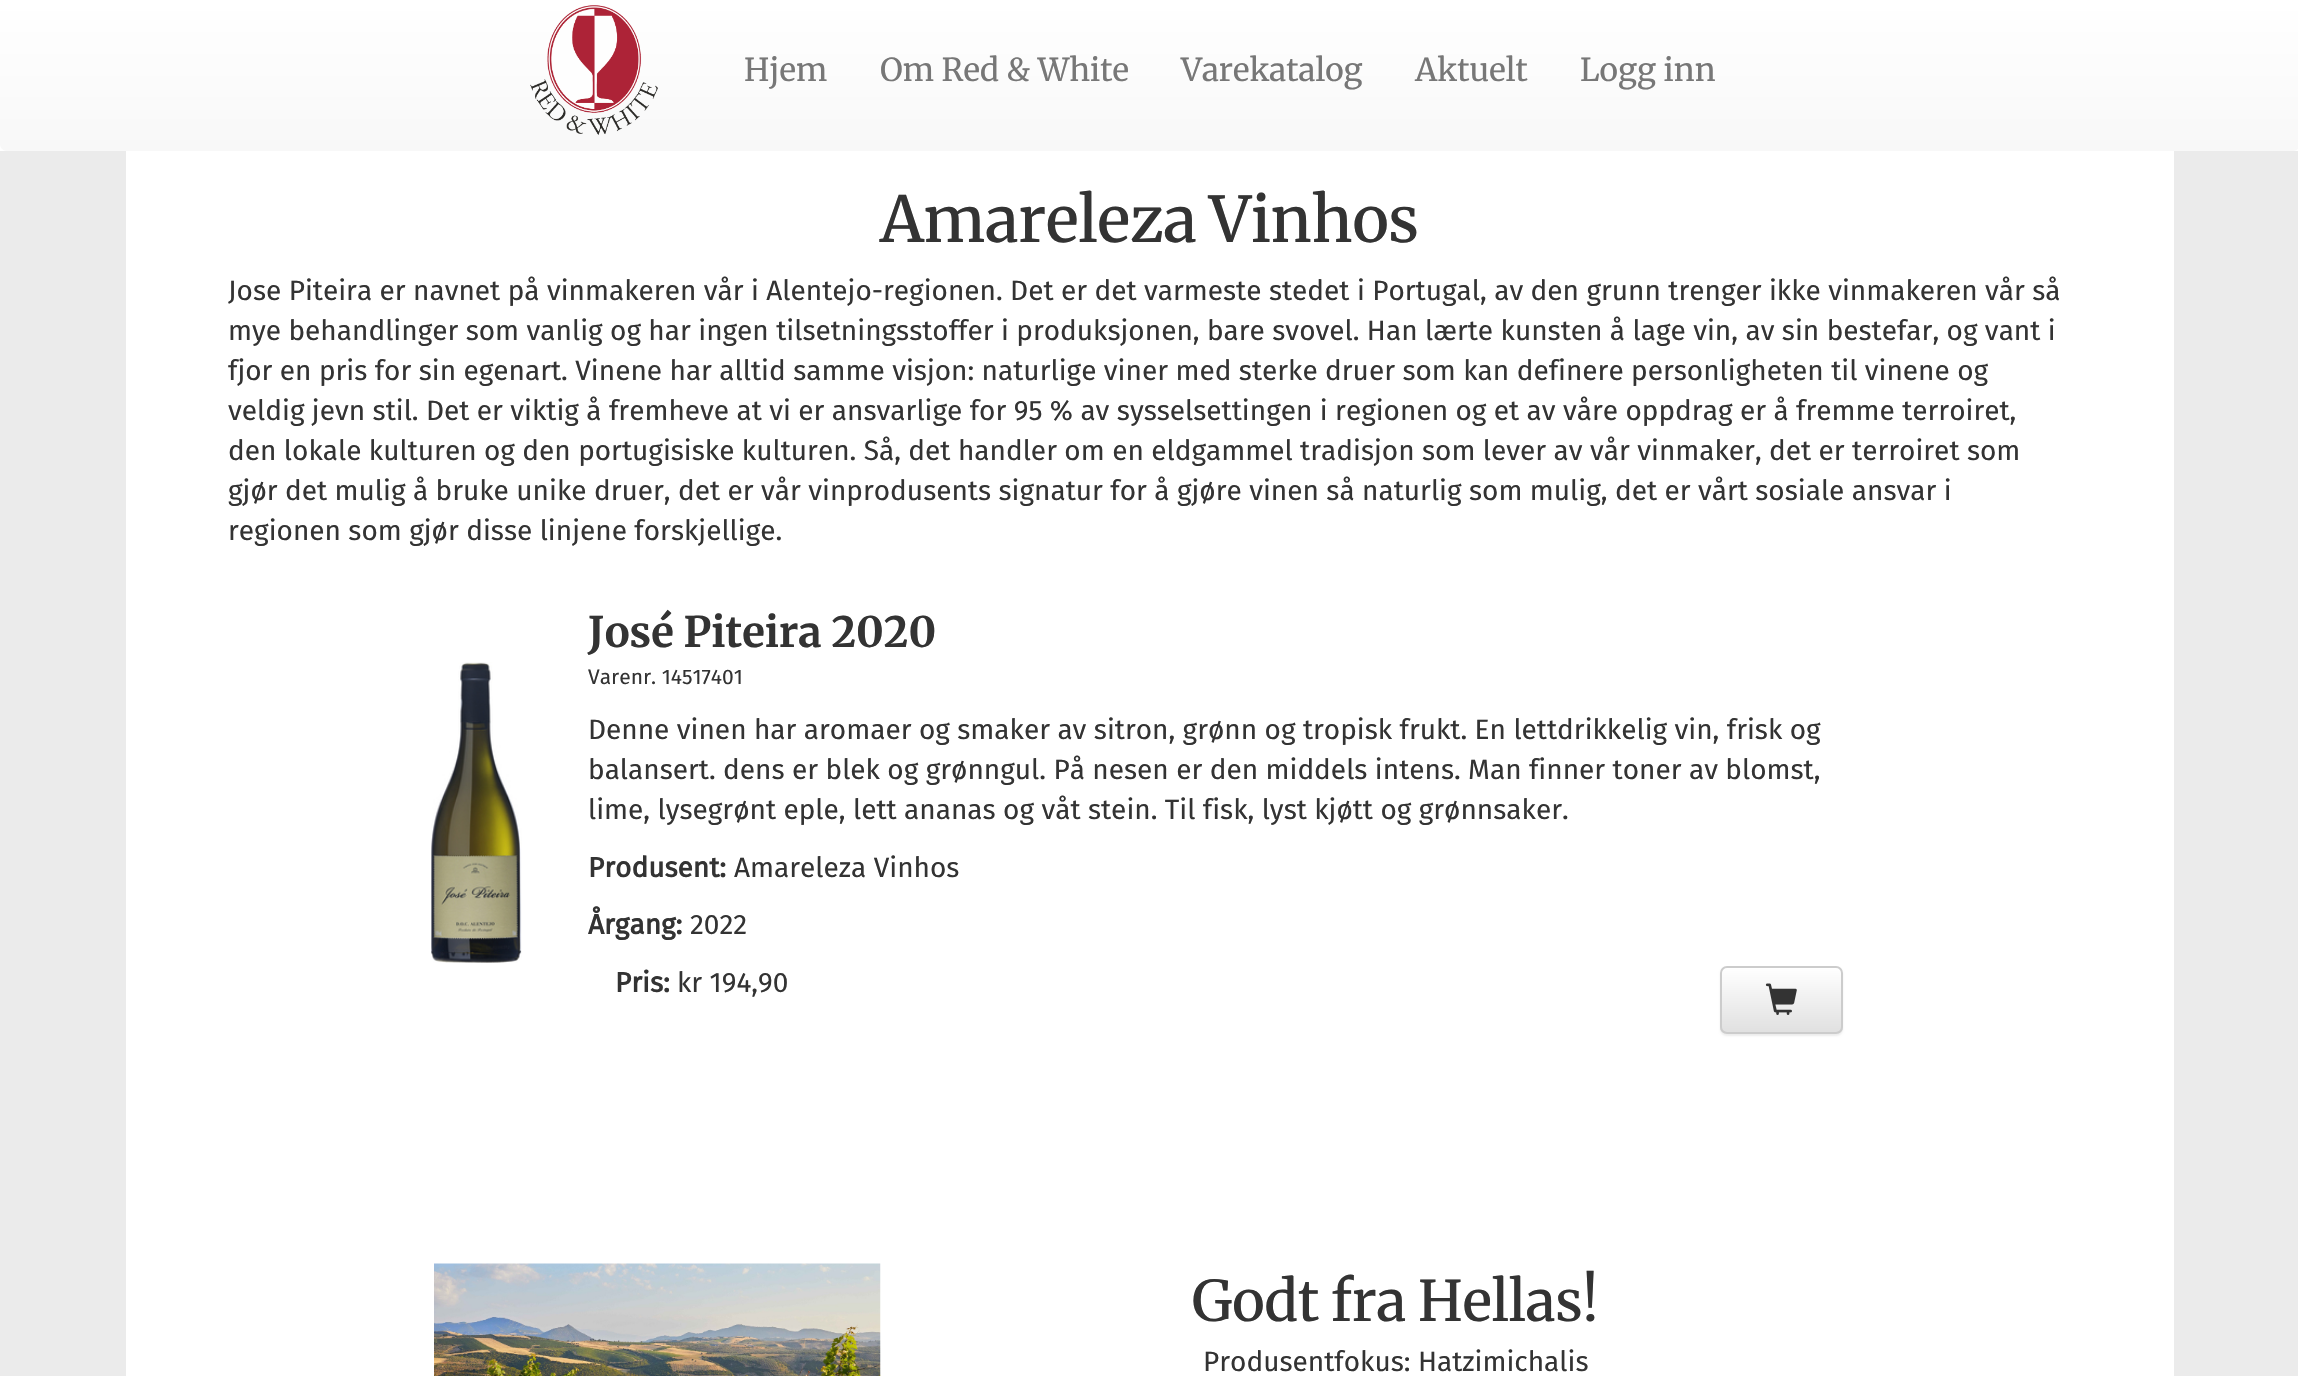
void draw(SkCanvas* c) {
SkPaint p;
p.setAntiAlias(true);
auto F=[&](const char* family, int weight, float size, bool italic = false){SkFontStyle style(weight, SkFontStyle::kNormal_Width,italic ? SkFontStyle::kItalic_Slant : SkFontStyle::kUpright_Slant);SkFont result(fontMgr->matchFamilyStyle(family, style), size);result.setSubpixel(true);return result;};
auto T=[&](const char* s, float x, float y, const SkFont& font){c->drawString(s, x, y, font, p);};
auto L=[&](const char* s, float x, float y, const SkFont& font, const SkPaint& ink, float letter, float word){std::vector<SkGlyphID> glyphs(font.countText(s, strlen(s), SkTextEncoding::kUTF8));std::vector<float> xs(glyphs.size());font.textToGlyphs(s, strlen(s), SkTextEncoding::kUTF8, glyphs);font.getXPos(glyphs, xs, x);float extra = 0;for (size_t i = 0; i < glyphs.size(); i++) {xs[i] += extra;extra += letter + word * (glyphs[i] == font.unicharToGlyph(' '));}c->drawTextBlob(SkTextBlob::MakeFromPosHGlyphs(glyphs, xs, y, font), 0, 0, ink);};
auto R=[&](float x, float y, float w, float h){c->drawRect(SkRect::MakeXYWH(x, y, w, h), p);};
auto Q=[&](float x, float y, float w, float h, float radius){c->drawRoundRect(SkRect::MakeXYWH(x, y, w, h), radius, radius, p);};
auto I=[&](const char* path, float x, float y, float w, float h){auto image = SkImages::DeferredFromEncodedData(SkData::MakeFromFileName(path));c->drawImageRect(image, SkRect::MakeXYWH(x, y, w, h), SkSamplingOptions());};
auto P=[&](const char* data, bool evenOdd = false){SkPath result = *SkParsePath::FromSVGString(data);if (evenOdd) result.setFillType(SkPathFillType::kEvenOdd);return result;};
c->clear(0xffebebeb);
p.setColor(0xffffffff);
R(0,0,2298,151);
{
const SkColor colors[] = {0xffffffff,0xfff8f8f8};
const float stops[] = {0,1};
const SkPoint ends[] = {{1150,0}, {1150,151}};
p.setShader(SkGradientShader::MakeLinear(ends, colors, stops, 2, SkTileMode::kClamp));
p.setAlpha(255);
}
Q(0,0,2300,151,7);
I("1.png",530,5,128,130);
auto f1 = F("Merriweather",400,31.5);
p.setShader(nullptr);
p.setColor(0xff777777);
T("Hjem",744,81,f1);
T("Om Red & White",880,81,f1);
T("Varekatalog",1181,81,f1);
T("Aktuelt",1415,81,f1);
T("Logg inn",1580,81,f1);
p.setColor(0xffffffff);
R(126,151,2048,1225);
auto f2 = F("Merriweather",500,63);
p.setColor(0xff333333);
L("Amareleza Vinhos",880,242,f2,p,0,-2);
auto f3 = F("Fira Sans",400,28);
T("Jose Piteira er navnet på vinmakeren vår i Alentejo-regionen. Det er det varmeste stedet i Portugal, av den grunn trenger ikke vinmakeren vår så",228,300,f3);
T("mye behandlinger som vanlig og har ingen tilsetningsstoffer i produksjonen, bare svovel. Han lærte kunsten å lage vin, av sin bestefar, og vant i",228,340,f3);
T("fjor en pris for sin egenart. Vinene har alltid samme visjon: naturlige viner med sterke druer som kan definere personligheten til vinene og",228,380,f3);
T("veldig jevn stil. Det er viktig å fremheve at vi er ansvarlige for 95 % av sysselsettingen i regionen og et av våre oppdrag er å fremme terroiret,",228,420,f3);
T("den lokale kulturen og den portugisiske kulturen. Så, det handler om en eldgammel tradisjon som lever av vår vinmaker, det er terroiret som",228,460,f3);
T("gjør det mulig å bruke unike druer, det er vår vinprodusents signatur for å gjøre vinen så naturlig som mulig, det er vårt sosiale ansvar i",228,500,f3);
T("regionen som gjør disse linjene forskjellige.",228,540,f3);
I("2.png",431,662,91,301);
auto f4 = F("Merriweather",700,42);
T("José Piteira 2020",588,647,f4);
auto f5 = F("Fira Sans",400,21);
T("Varenr. 14517401",588,684,f5);
T("Denne vinen har aromaer og smaker av sitron, grønn og tropisk frukt. En lettdrikkelig vin, frisk og",588,739,f3);
T("balansert. dens er blek og grønngul. På nesen er den middels intens. Man finner toner av blomst,",588,779,f3);
T("lime, lysegrønt eple, lett ananas og våt stein. Til fisk, lyst kjøtt og grønnsaker.",588,819,f3);
auto f6 = F("Fira Sans",700,28);
T("Produsent:",588,877,f6);
T("Amareleza Vinhos",734,877,f3);
T("Årgang:",588,934,f6);
T("2022",690,934,f3);
T("Pris:",615,992,f6);
T("kr 194,90",677,992,f3);
p.setColor(0x12000000);
p.setMaskFilter(SkMaskFilter::MakeBlur(kNormal_SkBlurStyle, 1));
c->drawRoundRect(SkRect::MakeXYWH(1720,968,123,68),7,7,p);
p.setMaskFilter(nullptr);
c->save();
c->clipPath(P("M1727 966h109c4 0 7 3 7 7v54c0 4-3 7-7 7h-109c-4 0-7-3-7-7v-54c0-4 3-7 7-7z"),true);
{
const SkColor colors[] = {0xffffffff,0xffe0e0e0};
const float stops[] = {0,1};
const SkPoint ends[] = {{1782,968}, {1782,1033}};
p.setShader(SkGradientShader::MakeLinear(ends, colors, stops, 2, SkTileMode::kClamp));
p.setAlpha(255);
}
R(1720,968,123,65);
c->restore();
p.setStroke(true);
p.setStrokeWidth(2);
p.setShader(nullptr);
p.setColor(0xffcccccc);
c->drawRoundRect(SkRect::MakeXYWH(1721,967,121,66),6,6,p);
I("3.png",1765,983,32,32);
I("4.png",434,1263,447,113);
auto f7 = F("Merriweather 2",500,56);
p.setStroke(false);
p.setColor(0xff333333);
L("Godt fra Hellas!",1192,1321,f7,p,0,-1);
T("Produsentfokus: Hatzimichalis",1203,1371,f3);
}
